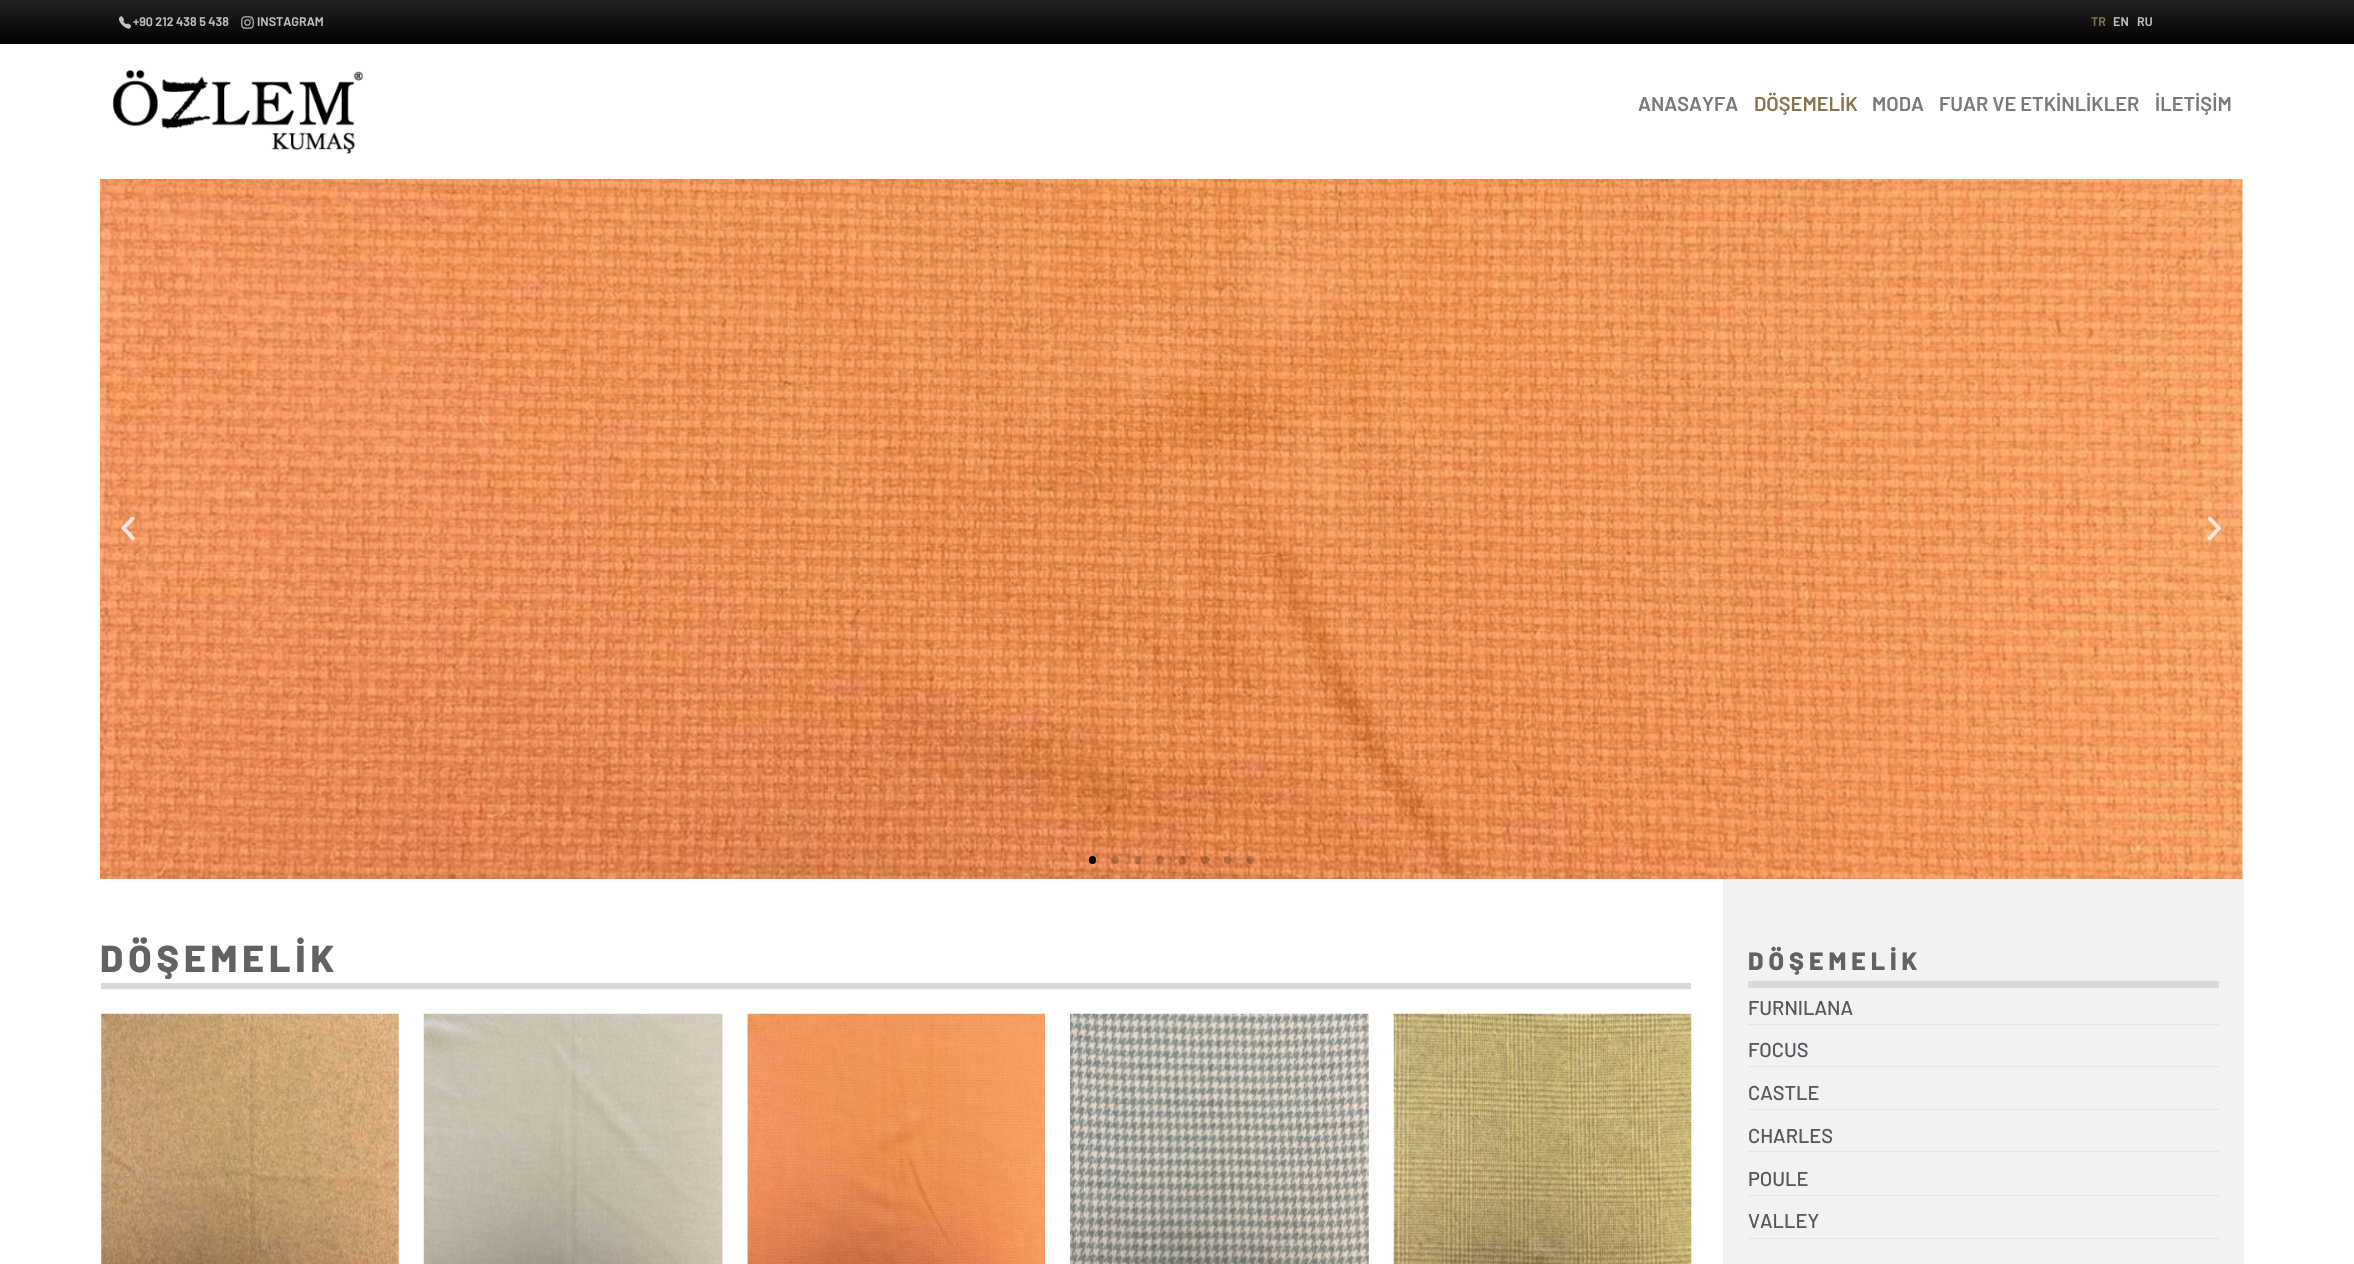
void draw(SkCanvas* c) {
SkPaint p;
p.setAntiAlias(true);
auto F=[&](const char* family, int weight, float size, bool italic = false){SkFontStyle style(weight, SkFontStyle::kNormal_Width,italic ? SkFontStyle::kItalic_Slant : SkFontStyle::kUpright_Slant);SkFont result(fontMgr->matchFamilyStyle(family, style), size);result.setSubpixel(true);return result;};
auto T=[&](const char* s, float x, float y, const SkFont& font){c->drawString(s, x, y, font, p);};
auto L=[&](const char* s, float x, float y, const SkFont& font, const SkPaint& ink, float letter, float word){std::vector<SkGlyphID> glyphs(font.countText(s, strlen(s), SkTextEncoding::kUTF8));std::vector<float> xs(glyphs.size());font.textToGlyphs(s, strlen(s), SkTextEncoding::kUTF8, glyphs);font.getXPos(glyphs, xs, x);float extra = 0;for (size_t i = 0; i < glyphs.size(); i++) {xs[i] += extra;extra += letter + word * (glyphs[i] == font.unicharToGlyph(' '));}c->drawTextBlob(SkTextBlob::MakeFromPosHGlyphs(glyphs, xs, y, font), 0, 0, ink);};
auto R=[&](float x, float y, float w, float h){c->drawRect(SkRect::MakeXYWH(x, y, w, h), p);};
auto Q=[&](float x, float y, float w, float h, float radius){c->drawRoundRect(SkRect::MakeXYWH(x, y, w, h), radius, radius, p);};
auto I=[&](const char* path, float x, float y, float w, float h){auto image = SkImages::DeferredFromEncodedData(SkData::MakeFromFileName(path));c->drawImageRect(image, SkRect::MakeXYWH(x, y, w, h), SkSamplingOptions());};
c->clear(0xffffffff);
{
const SkColor colors[] = {0xff212121,0xff040001};
const float stops[] = {0,1};
const SkPoint ends[] = {{1178,0}, {1178,44}};
p.setShader(SkGradientShader::MakeLinear(ends, colors, stops, 2, SkTileMode::kClamp));
p.setAlpha(255);
}
R(0,0,2354,44);
I("1.png",119,16,12,13);
auto f1 = F("Barlow",600,12.5);
p.setShader(nullptr);
p.setColor(0xffc0c0c0);
T("+90 212 438 5 438",133,26,f1);
I("2.png",241,16,13,13);
T("INSTAGRAM",257,26,f1);
p.setColor(0xff84754e);
T("TR",2091,26,f1);
p.setColor(0xffc0c0c0);
T("EN",2113,26,f1);
T("RU",2137,26,f1);
I("3.png",112,70,251,84);
auto f2 = F("Barlow",600,20);
p.setColor(0xff7a7a7a);
T("ANASAYFA",1638,111,f2);
p.setColor(0xff84754e);
T("DÖŞEMELİK",1754,111,f2);
p.setColor(0xff7a7a7a);
T("MODA",1872,111,f2);
T("FUAR VE ETKİNLİKLER",1939,111,f2);
T("İLETİŞİM",2155,111,f2);
p.setColor(0xfff2f2f2);
R(1723,873,521,391);
I("4.png",100,179,2143,700);
I("5.png",121,516,14,25);
I("6.png",2207,516,14,25);
p.setColor(0xff000000);
Q(1089,856,7,8,3.5);
p.setColor(0x33000000);
c->drawCircle(1115,860,4,p);
Q(1134,856,7,8,3.5);
c->drawCircle(1160,860,4,p);
Q(1179,856,7,8,3.5);
c->drawCircle(1205,860,4,p);
Q(1224,856,7,8,3.5);
c->drawCircle(1250,860,4,p);
auto f3 = F("Barlow",800,37.5);
p.setColor(0xff626262);
L("DÖŞEMELİK",100,972,f3,p,5,0);
p.setColor(0xffdad9d7);
R(101,983,1590,6);
I("7.png",101,1013,298,251);
I("8.png",423,1013,300,251);
I("9.png",747,1013,298,251);
I("10.png",1070,1013,299,251);
I("11.png",1393,1013,299,251);
auto f4 = F("Barlow",800,25);
p.setColor(0xff626262);
L("DÖŞEMELİK",1748,970,f4,p,5,0);
p.setColor(0xffdad9d7);
R(1748,981,471,7);
p.setColor(0xffe3e3e3);
R(1748,1024,471,1);
auto f5 = F("Barlow",500,20);
p.setColor(0xff54595f);
T("FURNILANA",1748,1015,f5);
p.setColor(0xffe3e3e3);
R(1748,1066,471,1);
p.setColor(0xff54595f);
T("FOCUS",1748,1057,f5);
p.setColor(0xffe3e3e3);
R(1748,1109,471,1);
p.setColor(0xff54595f);
T("CASTLE",1748,1100,f5);
p.setColor(0xffe3e3e3);
R(1748,1151,471,1);
p.setColor(0xff54595f);
T("CHARLES",1748,1143,f5);
p.setColor(0xffe3e3e3);
R(1748,1195,471,1);
p.setColor(0xff54595f);
T("POULE",1748,1186,f5);
p.setColor(0xffe3e3e3);
R(1748,1238,471,1);
p.setColor(0xff54595f);
T("VALLEY",1748,1228,f5);
}
